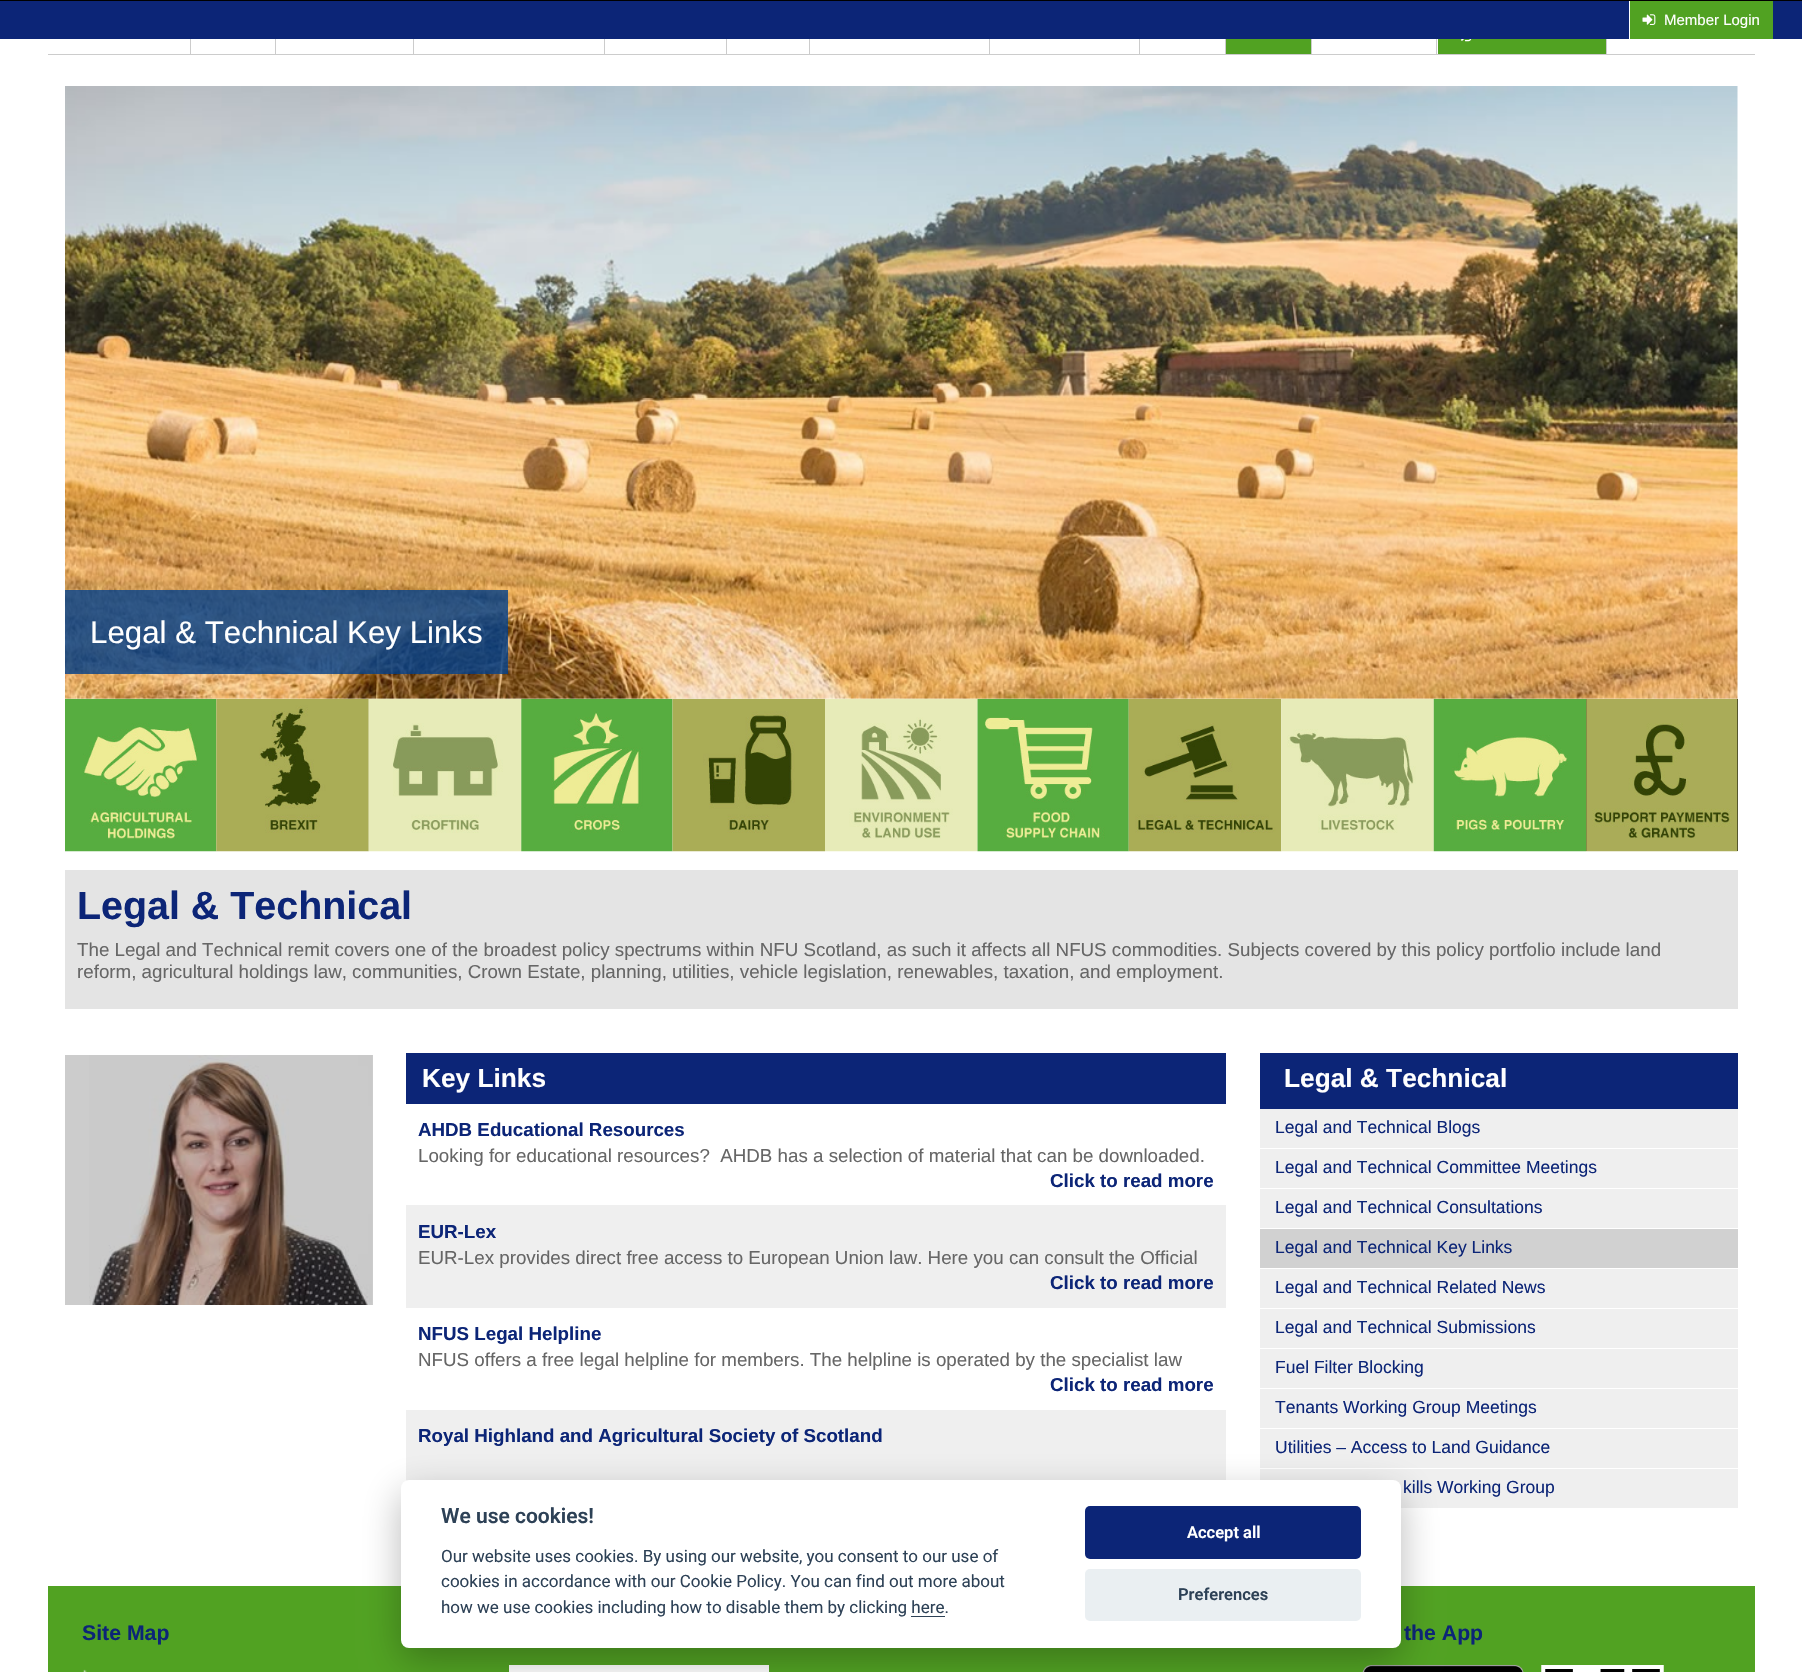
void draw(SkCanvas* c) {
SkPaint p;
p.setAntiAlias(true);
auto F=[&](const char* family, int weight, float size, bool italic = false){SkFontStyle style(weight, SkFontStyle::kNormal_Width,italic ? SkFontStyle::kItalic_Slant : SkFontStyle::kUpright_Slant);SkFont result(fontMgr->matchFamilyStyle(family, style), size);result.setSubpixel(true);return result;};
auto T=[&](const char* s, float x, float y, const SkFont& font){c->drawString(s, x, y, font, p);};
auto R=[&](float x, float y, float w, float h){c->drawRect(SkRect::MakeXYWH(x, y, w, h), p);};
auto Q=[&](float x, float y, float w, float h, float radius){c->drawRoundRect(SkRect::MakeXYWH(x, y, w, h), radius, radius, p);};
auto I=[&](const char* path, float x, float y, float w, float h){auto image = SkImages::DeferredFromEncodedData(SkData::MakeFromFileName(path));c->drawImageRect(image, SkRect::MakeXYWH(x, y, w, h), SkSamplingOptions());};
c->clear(0xffffffff);
p.setColor(0xffcccccc);
R(65,1055,308,250);
p.setColor(0xff0c2577);
R(0,1,1802,38);
p.setColor(0xff000000);
R(0,0,1802,1);
p.setColor(0xff51a222);
R(1630,1,143,38);
p.setColor(0xffffffff);
R(1629,1,1,38);
I("1.png",1642,14,14,11);
auto f1 = F("Liberation Sans",400,15);
T("Member Login",1664,25,f1);
p.setColor(0xffcccccc);
R(48,54,1707,1);
R(190,39,1,15);
R(275,39,1,15);
R(413,39,1,15);
R(604,39,1,15);
R(726,39,1,15);
R(809,39,1,15);
R(989,39,1,15);
R(1139,39,1,15);
R(1225,39,1,15);
p.setColor(0xff51a222);
R(1226,39,85,15);
p.setColor(0xffcccccc);
R(1311,39,1,15);
R(1606,39,1,15);
R(1436,39,1,15);
p.setColor(0xff51a222);
R(1438,39,168,15);
I("2.png",1461,39,11,3);
I("4.png",65,698,152,154);
I("5.png",216,698,153,154);
I("6.png",368,698,154,154);
I("7.png",521,698,152,154);
I("8.png",672,698,153,154);
I("9.png",825,698,153,154);
I("10.png",977,698,152,154);
I("11.png",1128,698,154,154);
I("12.png",1281,698,153,154);
p.setColor(0xff000000);
R(1586,699,152,152);
I("13.png",1433,698,154,154);
I("14.png",1586,698,152,154);
I("3.png",65,86,1673,613);
p.setColor(0xcc003f8b);
R(65,590,443,84);
auto f2 = F("Liberation Sans",400,31.25);
p.setColor(0xffffffff);
T("Legal & Technical Key Links",90,643,f2);
p.setColor(0xffe4e4e4);
R(65,870,1673,139);
auto f3 = F("Liberation Sans",700,39.4);
p.setColor(0xff0c2577);
T("Legal & Technical",77,919,f3);
auto f4 = F("Liberation Sans",400,18.75);
p.setColor(0xff666666);
T("The Legal and Technical remit covers one of the broadest policy spectrums within NFU Scotland, as such it affects all NFUS commodities. Subjects covered by this policy portfolio include land",77,956,f4);
T("reform, agricultural holdings law, communities, Crown Estate, planning, utilities, vehicle legislation, renewables, taxation, and employment.",77,978,f4);
I("15.png",89,1055,283,250);
p.setColor(0xff0c2577);
R(406,1053,820,51);
auto f5 = F("Liberation Sans",700,26.25);
p.setColor(0xffffffff);
T("Key Links",422,1087,f5);
auto f6 = F("Liberation Sans",700,18.75);
p.setColor(0xff0c2577);
T("AHDB Educational Resources",418,1136,f6);
p.setColor(0xff666666);
T("Looking for educational resources?  AHDB has a selection of material that can be downloaded.",418,1162,f4);
p.setColor(0xff0c2577);
T("Click to read more",1050,1187,f6);
p.setColor(0xffefefef);
R(406,1205,820,103);
p.setColor(0xff0c2577);
T("EUR-Lex",418,1238,f6);
p.setColor(0xff666666);
T("EUR-Lex provides direct free access to European Union law. Here you can consult the Official",418,1264,f4);
p.setColor(0xff0c2577);
T("Click to read more",1050,1289,f6);
T("NFUS Legal Helpline",418,1340,f6);
p.setColor(0xff666666);
T("NFUS offers a free legal helpline for members. The helpline is operated by the specialist law",418,1366,f4);
p.setColor(0xff0c2577);
T("Click to read more",1050,1391,f6);
p.setColor(0xffefefef);
R(406,1410,820,71);
p.setColor(0xff0c2577);
T("Royal Highland and Agricultural Society of Scotland",418,1442,f6);
R(1260,1053,478,56);
p.setColor(0xffffffff);
T("Legal & Technical",1284,1087,f5);
p.setColor(0xffefefef);
R(1260,1109,478,39);
auto f7 = F("Liberation Sans",400,17.5);
p.setColor(0xff0c2577);
T("Legal and Technical Blogs",1275,1133,f7);
p.setColor(0xffefefef);
R(1260,1149,478,39);
p.setColor(0xff0c2577);
T("Legal and Technical Committee Meetings",1275,1173,f7);
p.setColor(0xffefefef);
R(1260,1189,478,39);
p.setColor(0xff0c2577);
T("Legal and Technical Consultations",1275,1213,f7);
p.setColor(0xffd1d1d1);
R(1260,1229,478,39);
p.setColor(0xff0c2577);
T("Legal and Technical Key Links",1275,1253,f7);
p.setColor(0xffefefef);
R(1260,1269,478,39);
p.setColor(0xff0c2577);
T("Legal and Technical Related News",1275,1293,f7);
p.setColor(0xffefefef);
R(1260,1309,478,39);
p.setColor(0xff0c2577);
T("Legal and Technical Submissions",1275,1333,f7);
p.setColor(0xffefefef);
R(1260,1349,478,39);
p.setColor(0xff0c2577);
T("Fuel Filter Blocking",1275,1373,f7);
p.setColor(0xffefefef);
R(1260,1389,478,39);
p.setColor(0xff0c2577);
T("Tenants Working Group Meetings",1275,1413,f7);
p.setColor(0xffefefef);
R(1260,1429,478,39);
p.setColor(0xff0c2577);
T("Utilities – Access to Land Guidance",1275,1453,f7);
p.setColor(0xffefefef);
R(1260,1469,478,39);
p.setColor(0xff0c2577);
T("kills Working Group",1403,1493,f7);
p.setColor(0xff51a222);
R(48,1586,1707,86);
auto f8 = F("Liberation Sans",700,21.25);
p.setColor(0xff0c2577);
T("Site Map",82,1640,f8);
I("16.png",83,1669,4,3);
T("the App",1404,1640,f8);
I("17.png",1362,1665,162,7);
I("18.png",1541,1665,123,7);
p.setColor(0xffffffff);
R(509,1665,260,7);
p.setColor(0x47020203);
p.setMaskFilter(SkMaskFilter::MakeBlur(kNormal_SkBlurStyle, 19));
c->drawRoundRect(SkRect::MakeXYWH(401,1493,1000,167),8,8,p);
p.setMaskFilter(nullptr);
p.setColor(0xffffffff);
Q(401,1480,1000,168,8);
auto f9 = F("Roboto",600,21);
p.setColor(0xff2d4156);
T("We use cookies!",441,1523,f9);
auto f10 = F("Roboto",400,17);
T("Our website uses cookies. By using our website, you consent to our use of",441,1562,f10);
T("cookies in accordance with our Cookie Policy. You can find out more about",441,1587,f10);
T("how we use cookies including how to disable them by clicking here.",441,1613,f10);
R(911,1616,34,1);
p.setColor(0xff0c2577);
Q(1085,1506,276,53,5);
auto f11 = F("Roboto",600,16.5);
p.setColor(0xffffffff);
T("Accept all",1187,1538,f11);
p.setColor(0xffeaeff2);
Q(1085,1569,276,52,5);
p.setColor(0xff2d4156);
T("Preferences",1178,1600,f11);
}
